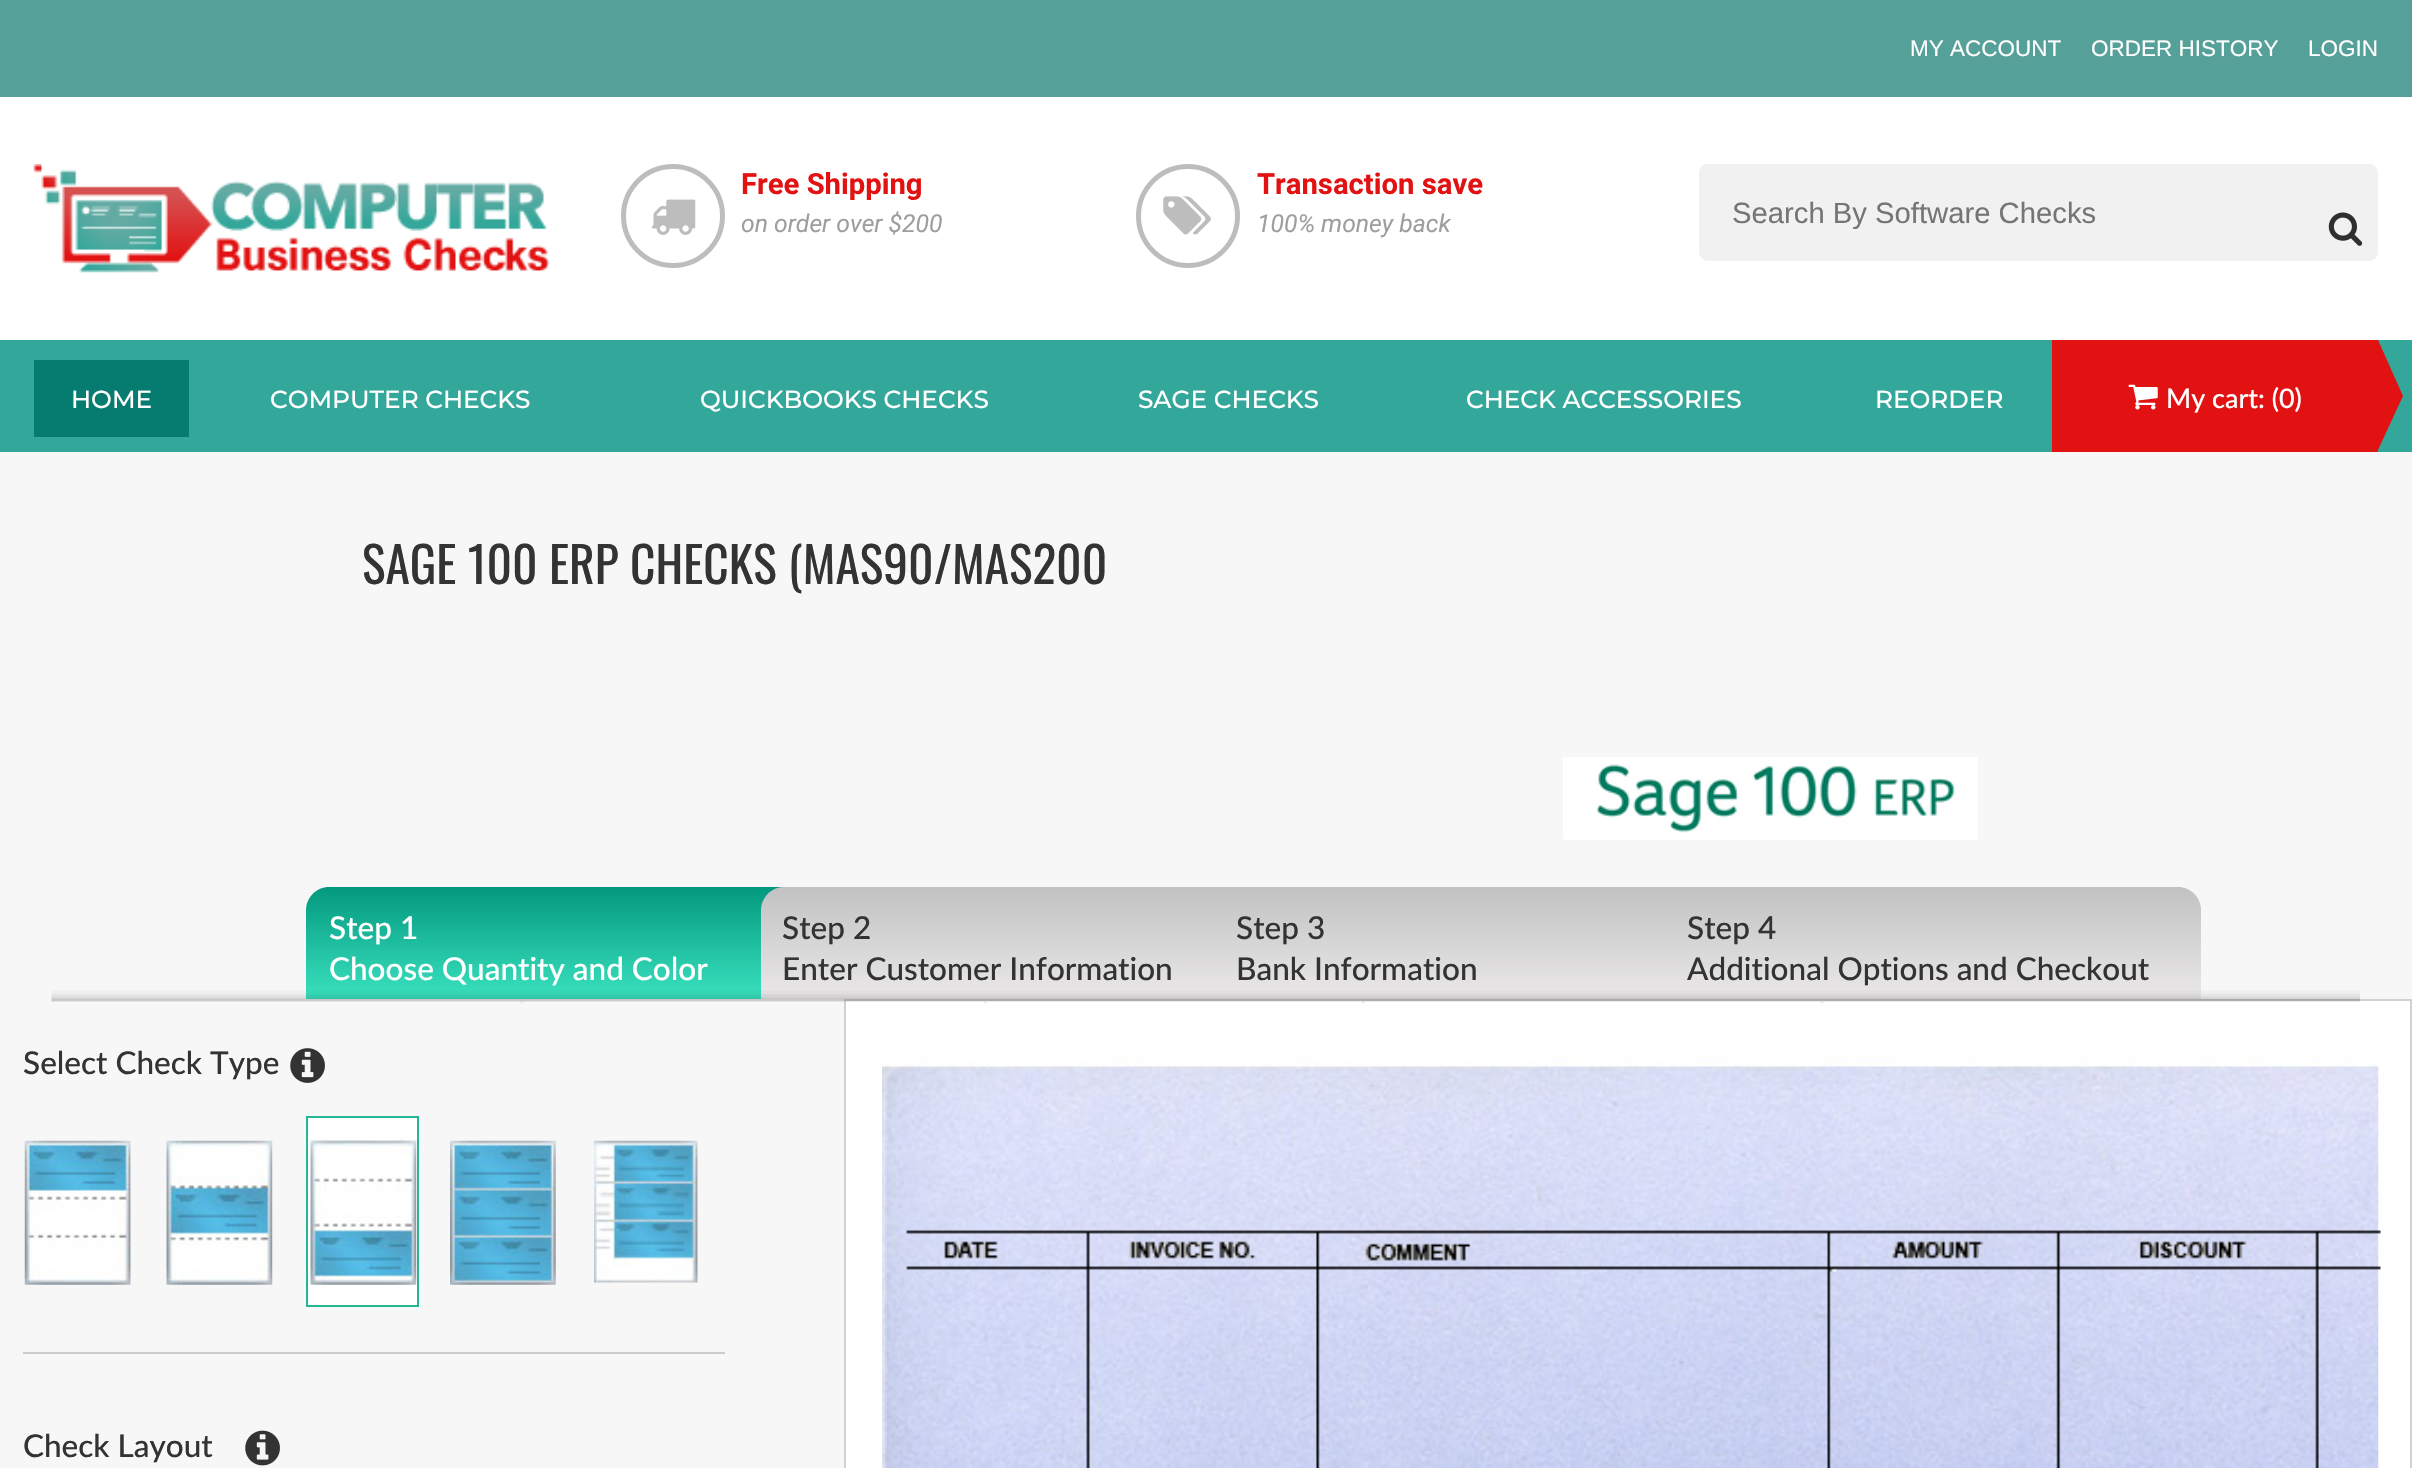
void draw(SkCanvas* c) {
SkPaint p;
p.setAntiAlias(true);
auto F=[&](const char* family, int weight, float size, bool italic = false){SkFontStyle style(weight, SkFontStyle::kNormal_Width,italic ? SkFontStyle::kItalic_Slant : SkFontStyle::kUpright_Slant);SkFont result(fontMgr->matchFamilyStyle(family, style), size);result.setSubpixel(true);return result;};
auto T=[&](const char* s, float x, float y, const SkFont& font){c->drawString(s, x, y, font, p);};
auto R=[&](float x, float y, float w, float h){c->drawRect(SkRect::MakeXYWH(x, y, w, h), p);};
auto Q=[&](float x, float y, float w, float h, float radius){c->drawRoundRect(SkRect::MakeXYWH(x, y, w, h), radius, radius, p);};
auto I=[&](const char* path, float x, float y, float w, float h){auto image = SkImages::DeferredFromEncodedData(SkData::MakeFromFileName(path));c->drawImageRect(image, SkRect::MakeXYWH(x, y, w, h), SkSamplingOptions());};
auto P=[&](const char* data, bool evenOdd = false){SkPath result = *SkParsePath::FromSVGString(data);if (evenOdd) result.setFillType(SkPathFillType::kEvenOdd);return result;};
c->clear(0xffffffff);
p.setColor(0xff55a098);
R(0,0,2412,97);
auto f1 = F("Liberation Sans",400,22.5);
p.setColor(0xffffffff);
T("MY ACCOUNT",1910,56,f1);
T("ORDER HISTORY",2091,56,f1);
T("LOGIN",2308,56,f1);
I("1.png",33,164,516,109);
p.setStroke(true);
p.setStrokeWidth(5);
p.setColor(0xffbdbdbd);
c->drawCircle(673,216,49.5,p);
I("2.png",651,199,45,36);
auto f2 = F("Roboto",700,29.25);
p.setStroke(false);
p.setColor(0xffe21212);
T("Free Shipping",741,194,f2);
auto f3 = F("Roboto",400,24.75,true);
p.setColor(0xff9e9e9e);
T("on order over $200",741,232,f3);
p.setStroke(true);
p.setColor(0xffbdbdbd);
c->drawCircle(1188,216,49.5,p);
I("3.png",1163,196,48,39);
p.setStroke(false);
p.setColor(0xffe21212);
T("Transaction save",1257,194,f2);
p.setColor(0xff9e9e9e);
T("100% money back",1257,232,f3);
p.setColor(0xfff1f1f1);
Q(1699,164,679,97,9);
auto f4 = F("Liberation Sans",400,29.25);
p.setColor(0xff757575);
T("Search By Software Checks",1732,223,f4);
I("4.png",2328,212,35,34);
p.setColor(0xff33a79a);
R(0,340,2412,112);
p.setColor(0xff057c6f);
R(34,360,155,77);
auto f5 = F("Montserrat",500,24.75);
p.setColor(0xffffffff);
T("HOME",71,408,f5);
T("COMPUTER CHECKS",270,408,f5);
T("QUICKBOOKS CHECKS",700,408,f5);
T("SAGE CHECKS",1138,408,f5);
T("CHECK ACCESSORIES",1466,408,f5);
T("REORDER",1875,408,f5);
p.setColor(0xffe21212);
R(2052,340,326,112);
I("5.png",2128,384,30,26);
auto f6 = F("Lato",500,27);
p.setColor(0xffffffff);
T("My cart: (0)",2166,408,f6);
p.setColor(0xffe21212);
c->drawPath(P("M2378 450v-110l25 56z"),p);
p.setColor(0xfff7f7f7);
R(0,452,2412,1016);
auto f7 = F("Oswald",400,49.5);
p.setColor(0xff333333);
T("SAGE 100 ERP CHECKS (MAS90/MAS200",362,584,f7);
I("6.png",1563,757,415,83);
{
const SkColor colors[] = {0xff03987f,0xff3ae2bf};
const float stops[] = {0,1};
const SkPoint ends[] = {{574,887}, {574,999}};
p.setShader(SkGradientShader::MakeLinear(ends, colors, stops, 2, SkTileMode::kClamp));
p.setAlpha(255);
}
c->drawPath(P("M329 887h490c12.5 0 23 10.5 23 23v89h-536v-89c0-12.5 10.5-23 23-23z"),p);
auto f8 = F("Lato",500,31.5);
p.setShader(nullptr);
p.setColor(0xffffffff);
T("Step 1",329,939,f8);
T("Choose Quantity and Color",329,980,f8);
p.setColor(0xffcccccc);
R(23,1352,702,2);
p.setColor(0xff333333);
T("Select Check Type",23,1074,f8);
I("7.png",290,1048,35,35);
I("8.png",24,1140,107,145);
I("9.png",166,1140,107,145);
p.setColor(0xffffffff);
R(308,1118,109,187);
I("10.png",308,1138,109,147);
p.setStroke(true);
p.setStrokeWidth(2);
p.setColor(0xff25b696);
c->drawRect(SkRect::MakeXYWH(307,1117,111,189),p);
I("11.png",450,1140,106,145);
I("12.png",594,1140,104,143);
p.setStroke(false);
p.setColor(0xff333333);
T("Check Layout",23,1457,f8);
I("13.png",245,1430,35,36);
{
const SkColor colors[] = {0xffc3c2c2,0xffeae8e8};
const float stops[] = {0,1};
const SkPoint ends[] = {{1028,887}, {1028,999}};
p.setShader(SkGradientShader::MakeLinear(ends, colors, stops, 2, SkTileMode::kClamp));
p.setAlpha(255);
}
c->drawPath(P("M784 887h489c12.5 0 23 10.5 23 23v89h-535v-89c0-12.5 10.5-23 23-23z"),p);
p.setShader(nullptr);
p.setColor(0xff333333);
T("Step 2",782,939,f8);
T("Enter Customer Information",782,980,f8);
{
const SkColor colors[] = {0xffc3c2c2,0xffeae8e8};
const float stops[] = {0,1};
const SkPoint ends[] = {{1481,887}, {1481,999}};
p.setShader(SkGradientShader::MakeLinear(ends, colors, stops, 2, SkTileMode::kClamp));
p.setAlpha(255);
}
c->drawPath(P("M1236 887h489c12.5 0 23 10.5 23 23v89h-535v-89c0-12.5 10.5-23 23-23z"),p);
p.setShader(nullptr);
p.setColor(0xff333333);
T("Step 3",1236,939,f8);
T("Bank Information",1236,980,f8);
{
const SkColor colors[] = {0xffc3c2c2,0xffeae8e8};
const float stops[] = {0,1};
const SkPoint ends[] = {{1933,887}, {1933,999}};
p.setShader(SkGradientShader::MakeLinear(ends, colors, stops, 2, SkTileMode::kClamp));
p.setAlpha(255);
}
c->drawPath(P("M1688 887h490c12.5 0 23 10.5 23 23v89h-536v-89c0-12.5 10.5-23 23-23z"),p);
p.setShader(nullptr);
p.setColor(0xff333333);
T("Step 4",1687,939,f8);
T("Additional Options and Checkout",1687,980,f8);
p.setColor(0xffffffff);
c->drawRect(SkRect::MakeXYWH(845,1000,1566,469),p);
p.setStroke(true);
p.setColor(0xffd1d1d1);
c->drawRect(SkRect::MakeXYWH(845,1000,1566,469),p);
I("14.png",51,990,2309,14);
I("15.png",882,1056,1497,412);
I("16.png",906,1230,1475,238);
}
